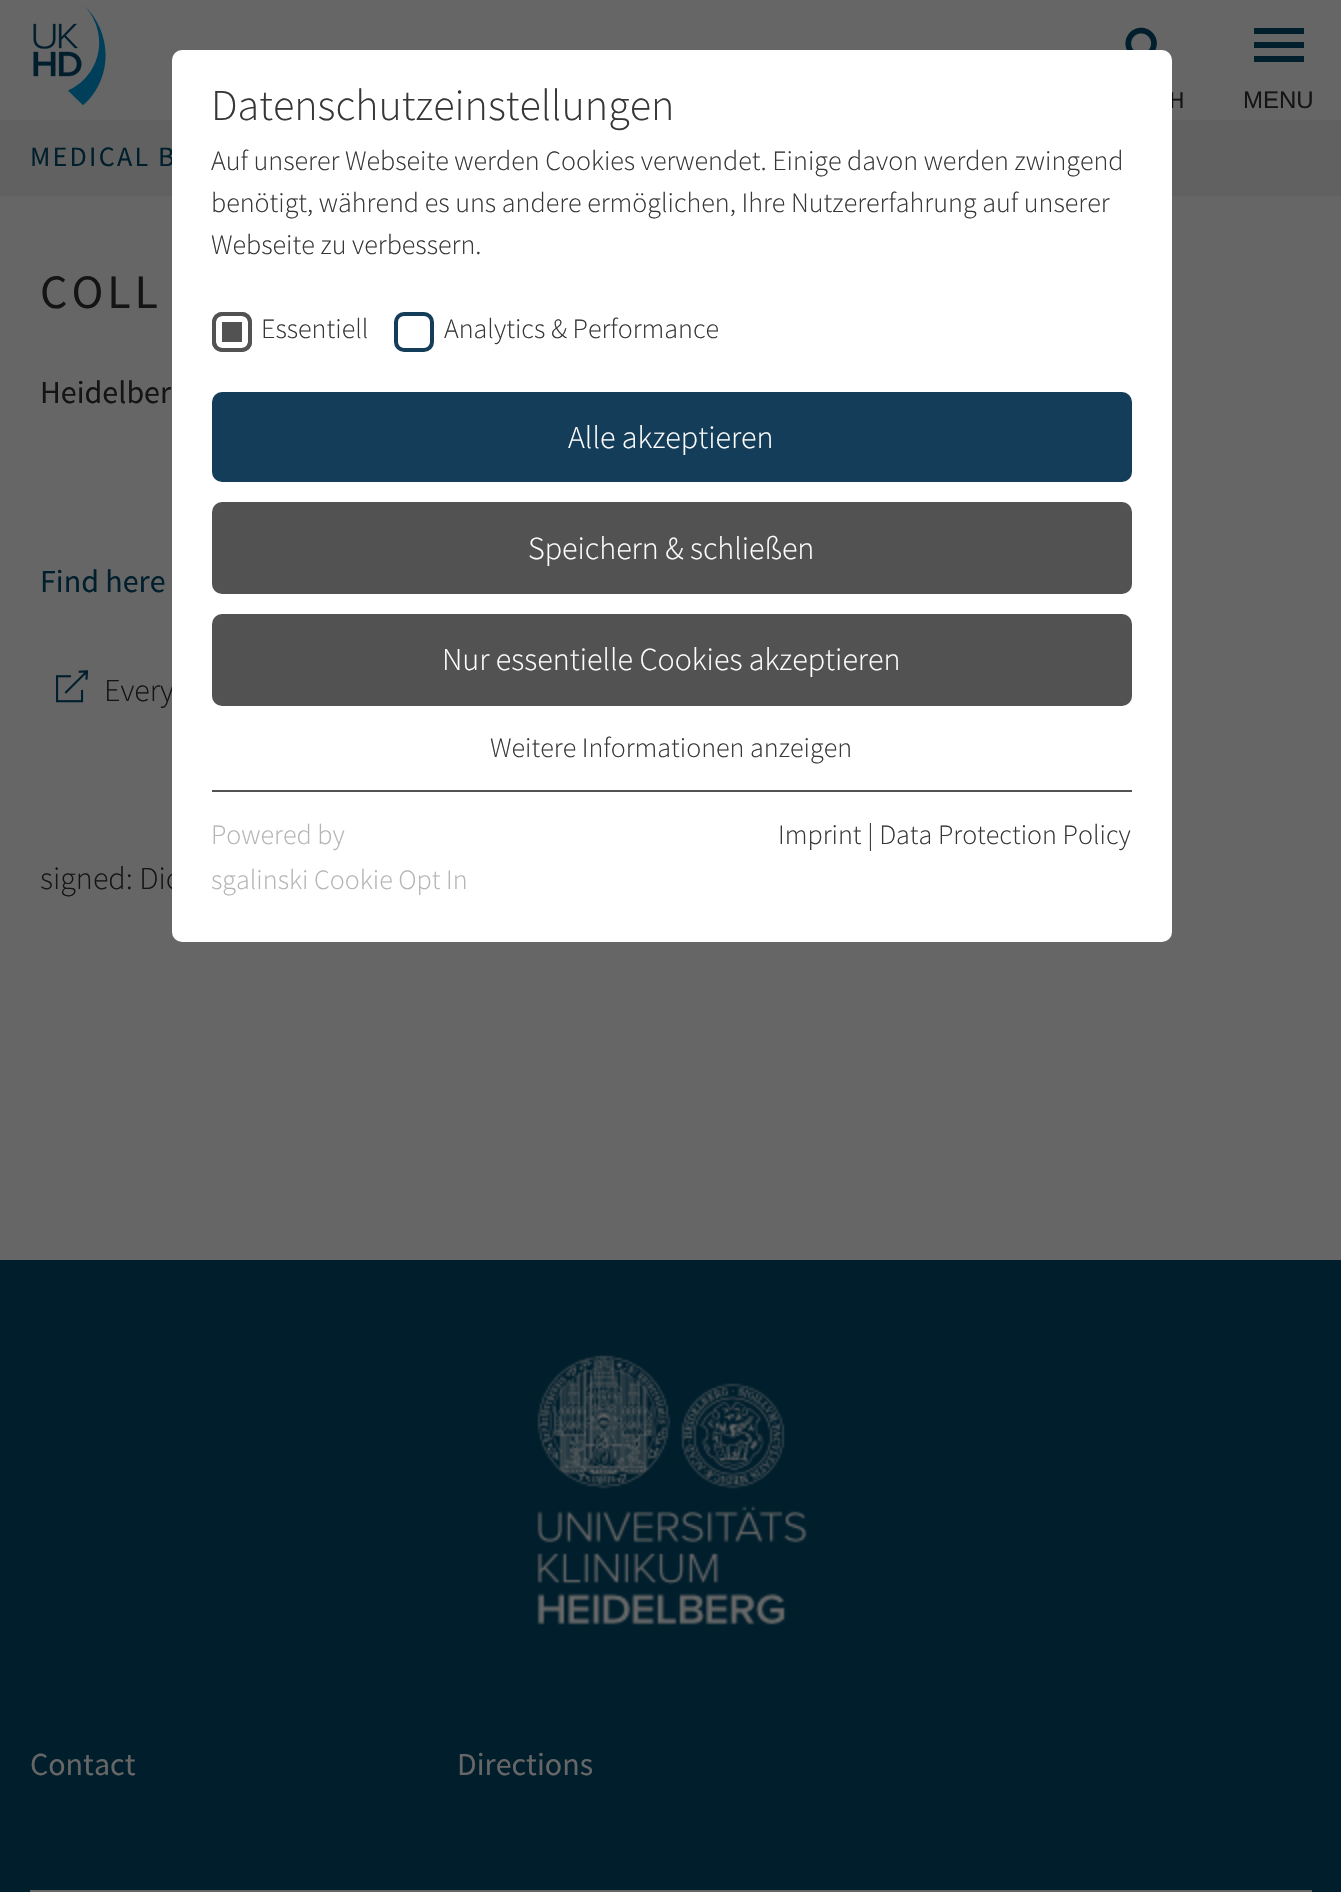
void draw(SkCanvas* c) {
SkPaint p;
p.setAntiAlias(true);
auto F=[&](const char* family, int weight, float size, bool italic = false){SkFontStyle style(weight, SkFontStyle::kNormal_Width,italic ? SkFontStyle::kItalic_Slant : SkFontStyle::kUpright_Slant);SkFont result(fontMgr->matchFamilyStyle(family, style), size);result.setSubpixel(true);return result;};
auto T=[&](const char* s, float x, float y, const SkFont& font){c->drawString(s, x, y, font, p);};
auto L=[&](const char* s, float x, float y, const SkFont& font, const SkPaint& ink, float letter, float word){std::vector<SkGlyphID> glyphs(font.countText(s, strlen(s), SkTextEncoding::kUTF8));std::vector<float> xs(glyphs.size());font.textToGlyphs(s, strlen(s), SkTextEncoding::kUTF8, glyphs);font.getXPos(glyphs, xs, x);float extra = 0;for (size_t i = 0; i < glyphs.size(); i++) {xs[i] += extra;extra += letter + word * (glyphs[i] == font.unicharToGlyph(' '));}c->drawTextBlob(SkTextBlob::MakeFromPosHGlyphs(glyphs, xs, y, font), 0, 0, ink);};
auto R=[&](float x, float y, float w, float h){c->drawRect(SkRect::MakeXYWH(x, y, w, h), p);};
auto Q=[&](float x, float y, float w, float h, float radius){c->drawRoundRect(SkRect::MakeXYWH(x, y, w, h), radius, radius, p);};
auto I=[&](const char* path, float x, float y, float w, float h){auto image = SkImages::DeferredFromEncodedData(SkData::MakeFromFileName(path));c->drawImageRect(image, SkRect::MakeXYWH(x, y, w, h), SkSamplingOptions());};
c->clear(0xff666666);
auto f1 = F("Source Sans Pro",400,24);
p.setColor(0xff141414);
T("H",1169,108,f1);
p.setColor(0xff616161);
R(0,120,1341,76);
auto f2 = F("Source Sans Pro",400,28);
p.setColor(0xff001e2c);
L("MEDICAL B",30,166,f2,p,2.25,0);
auto f3 = F("Source Sans Pro",300,32);
p.setColor(0xff141414);
T("Every",104,701,f3);
T("signed: Dic",40,889,f3);
p.setColor(0xffffffff);
Q(172,50,1000,892,10);
auto f4 = F("Source Sans Pro",300,44);
p.setColor(0xff373737);
T("Datenschutzeinstellungen",211,120,f4);
auto f5 = F("Source Sans Pro",300,28);
T("Auf unserer Webseite werden Cookies verwendet. Einige davon werden zwingend",211,170,f5);
T("benötigt, während es uns andere ermöglichen, Ihre Nutzererfahrung auf unserer",211,212,f5);
T("Webseite zu verbessern.",211,254,f5);
p.setColor(0xff525252);
Q(212,312,40,40,10);
p.setStroke(true);
p.setStrokeWidth(6);
p.setColor(0xffffffff);
c->drawRoundRect(SkRect::MakeXYWH(219,319,26,26),3,3,p);
p.setStrokeWidth(4);
p.setColor(0xff525252);
c->drawRoundRect(SkRect::MakeXYWH(214,314,36,36),8,8,p);
p.setStroke(false);
p.setColor(0xff373737);
T("Essentiell",261,338,f5);
p.setStroke(true);
p.setColor(0xff143d59);
c->drawRoundRect(SkRect::MakeXYWH(396,314,36,36),8,8,p);
p.setStroke(false);
p.setColor(0xff373737);
T("Analytics & Performance",444,338,f5);
p.setColor(0xff143d59);
Q(212,392,920,90,10);
p.setColor(0xffffffff);
T("Alle akzeptieren",568,448,f3);
p.setColor(0xff525252);
Q(212,502,920,92,10);
p.setColor(0xffffffff);
T("Speichern & schließen",528,559,f3);
p.setColor(0xff525252);
Q(212,614,920,92,10);
p.setColor(0xffffffff);
T("Nur essentielle Cookies akzeptieren",442,670,f3);
p.setColor(0xff373737);
T("Weitere Informationen anzeigen",490,757,f5);
p.setColor(0xff525252);
R(212,790,920,2);
p.setColor(0xffb4b4b4);
T("Powered by",211,844,f5);
T("sgalinski Cookie Opt In",211,889,f5);
p.setColor(0xff373737);
T("Imprint | Data Protection Policy",778,844,f5);
I("1.png",33,5,73,101);
I("2.png",1125,27,32,23);
p.setColor(0xff001e2c);
R(1254,28,50,6);
R(1254,42,50,6);
R(1254,56,50,6);
auto f6 = F("Liberation Sans",400,24);
p.setColor(0xff141414);
T("MENU",1243,108,f6);
auto f7 = F("Source Sans Pro",400,48);
L("COLL",40,308,f7,p,4,0);
auto f8 = F("Source Sans Pro",400,32);
T("Heidelber",40,403,f8);
p.setColor(0xff001e2c);
T("Find here",40,592,f8);
I("3.png",56,670,32,33);
R(0,1260,1341,632);
I("4.png",537,1355,270,270);
p.setColor(0xff666666);
T("Contact",30,1775,f8);
T("Directions",457,1775,f8);
R(30,1890,1282,2);
}
